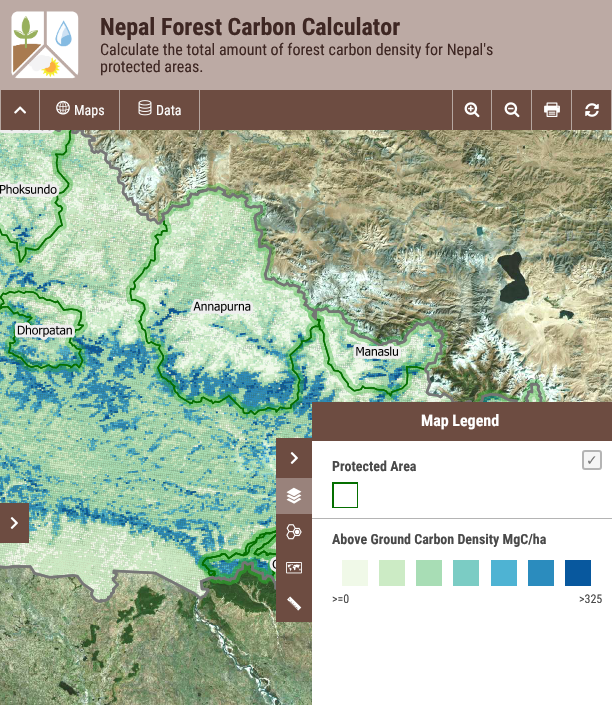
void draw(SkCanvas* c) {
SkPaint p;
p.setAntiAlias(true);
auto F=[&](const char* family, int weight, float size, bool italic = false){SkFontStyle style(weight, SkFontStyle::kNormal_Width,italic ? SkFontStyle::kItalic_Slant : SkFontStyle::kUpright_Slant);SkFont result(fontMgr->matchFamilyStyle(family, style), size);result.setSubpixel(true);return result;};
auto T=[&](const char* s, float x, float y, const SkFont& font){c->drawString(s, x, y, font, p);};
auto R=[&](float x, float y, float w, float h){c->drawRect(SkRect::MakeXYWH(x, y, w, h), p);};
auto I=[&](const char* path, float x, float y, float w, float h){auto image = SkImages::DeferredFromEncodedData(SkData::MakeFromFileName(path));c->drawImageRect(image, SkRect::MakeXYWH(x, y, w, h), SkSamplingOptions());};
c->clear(0xffffffff);
p.setColor(0xffbcaaa4);
R(0,0,612,90);
I("1.png",11,11,68,68);
auto f1 = F("Roboto Condensed",700,24);
p.setColor(0xff3e2723);
T("Nepal Forest Carbon Calculator",100,35,f1);
auto f2 = F("Roboto Condensed",400,16);
T("Calculate the total amount of forest carbon density for Nepal's",100,55,f2);
T("protected areas.",100,72,f2);
p.setColor(0xff6d4c41);
R(1,90,610,40);
p.setColor(0xffb6a6a0);
R(39,90,1,40);
R(0,90,1,40);
I("2.png",14,106,12,8);
R(119,90,1,40);
I("3.png",56,100,14,15);
auto f3 = F("Roboto Condensed",400,14);
p.setColor(0xffffffff);
T("Maps",74,115,f3);
p.setColor(0xffb6a6a0);
R(199,90,1,40);
I("4.png",138,100,14,16);
p.setColor(0xffffffff);
T("Data",156,115,f3);
p.setColor(0xffb6a6a0);
R(491,90,1,40);
R(452,90,1,40);
I("5.png",464,102,16,16);
R(531,90,1,40);
I("6.png",504,102,16,16);
R(571,90,1,40);
I("7.png",544,102,16,15);
R(611,90,1,40);
I("8.png",585,103,14,14);
I("9.png",0,131,37,14);
I("10.png",37,130,256,15);
I("11.png",293,130,256,15);
I("12.png",549,130,63,15);
I("13.png",0,145,37,256);
I("14.png",37,145,256,256);
I("15.png",293,145,256,256);
I("16.png",549,145,63,256);
I("17.png",0,401,37,256);
I("18.png",37,401,256,256);
I("19.png",293,401,256,256);
I("20.png",549,401,63,1);
I("21.png",0,657,37,48);
I("22.png",37,657,256,48);
I("23.png",293,657,19,48);
I("24.png",0,130,37,15);
I("25.png",37,130,59,15);
I("26.png",0,145,37,256);
I("27.png",37,145,256,256);
I("28.png",293,280,253,121);
I("29.png",0,401,37,174);
I("30.png",37,401,256,202);
I("31.png",293,401,253,37);
p.setColor(0xff6d4c41);
R(0,503,29,40);
I("32.png",10,517,8,12);
R(276,438,36,184);
I("32.png",290,452,8,12);
I("33.png",286,487,16,17);
p.setColor(0x4dffffff);
R(276,478,36,36);
I("34.png",286,524,16,16);
I("35.png",286,562,16,12);
I("36.png",287,596,15,15);
p.setColor(0xffffffff);
R(312,441,237,216);
p.setColor(0xff6d4c41);
R(312,402,300,39);
auto f4 = F("Roboto Condensed",700,16);
p.setColor(0xffffffff);
T("Map Legend",421,426,f4);
p.setColor(0xfff5f5f5);
c->drawRoundRect(SkRect::MakeXYWH(583,451,18,18),2,2,p);
p.setStroke(true);
p.setStrokeWidth(2);
p.setColor(0xffb4b4b4);
c->drawRoundRect(SkRect::MakeXYWH(583,451,18,18),2,2,p);
auto f5 = F("DejaVu Sans",400,14);
p.setStroke(false);
p.setColor(0xff777777);
T("✓",586,465,f5);
p.setColor(0xffb4b4b4);
R(312,518,300,1);
auto f6 = F("Roboto Condensed",700,14);
p.setColor(0xff4a4a4a);
T("Protected Area",332,471,f6);
c->save();
c->clipRect(SkRect::MakeXYWH(332,482,26,26));
p.setStroke(true);
p.setStrokeWidth(3);
p.setColor(0xff056f00);
c->drawRect(SkRect::MakeXYWH(332.5,482.5,26,26),p);
c->restore();
p.setStroke(false);
p.setColor(0xff4a4a4a);
T("Above Ground Carbon Density MgC/ha",332,544,f6);
p.setColor(0xfff0f9e8);
R(342,560,26,26);
p.setColor(0xffccebc5);
R(379,560,26,26);
p.setColor(0xffa8ddb5);
R(416,560,26,26);
p.setColor(0xff7bccc4);
R(453,560,26,26);
p.setColor(0xff4eb3d3);
R(491,560,26,26);
p.setColor(0xff2b8cbe);
R(528,560,26,26);
p.setColor(0xff08589e);
R(565,560,26,26);
auto f7 = F("Roboto Condensed",400,12);
p.setColor(0xff4a4a4a);
T(">=0",332,603,f7);
T(">325",579,603,f7);
}
